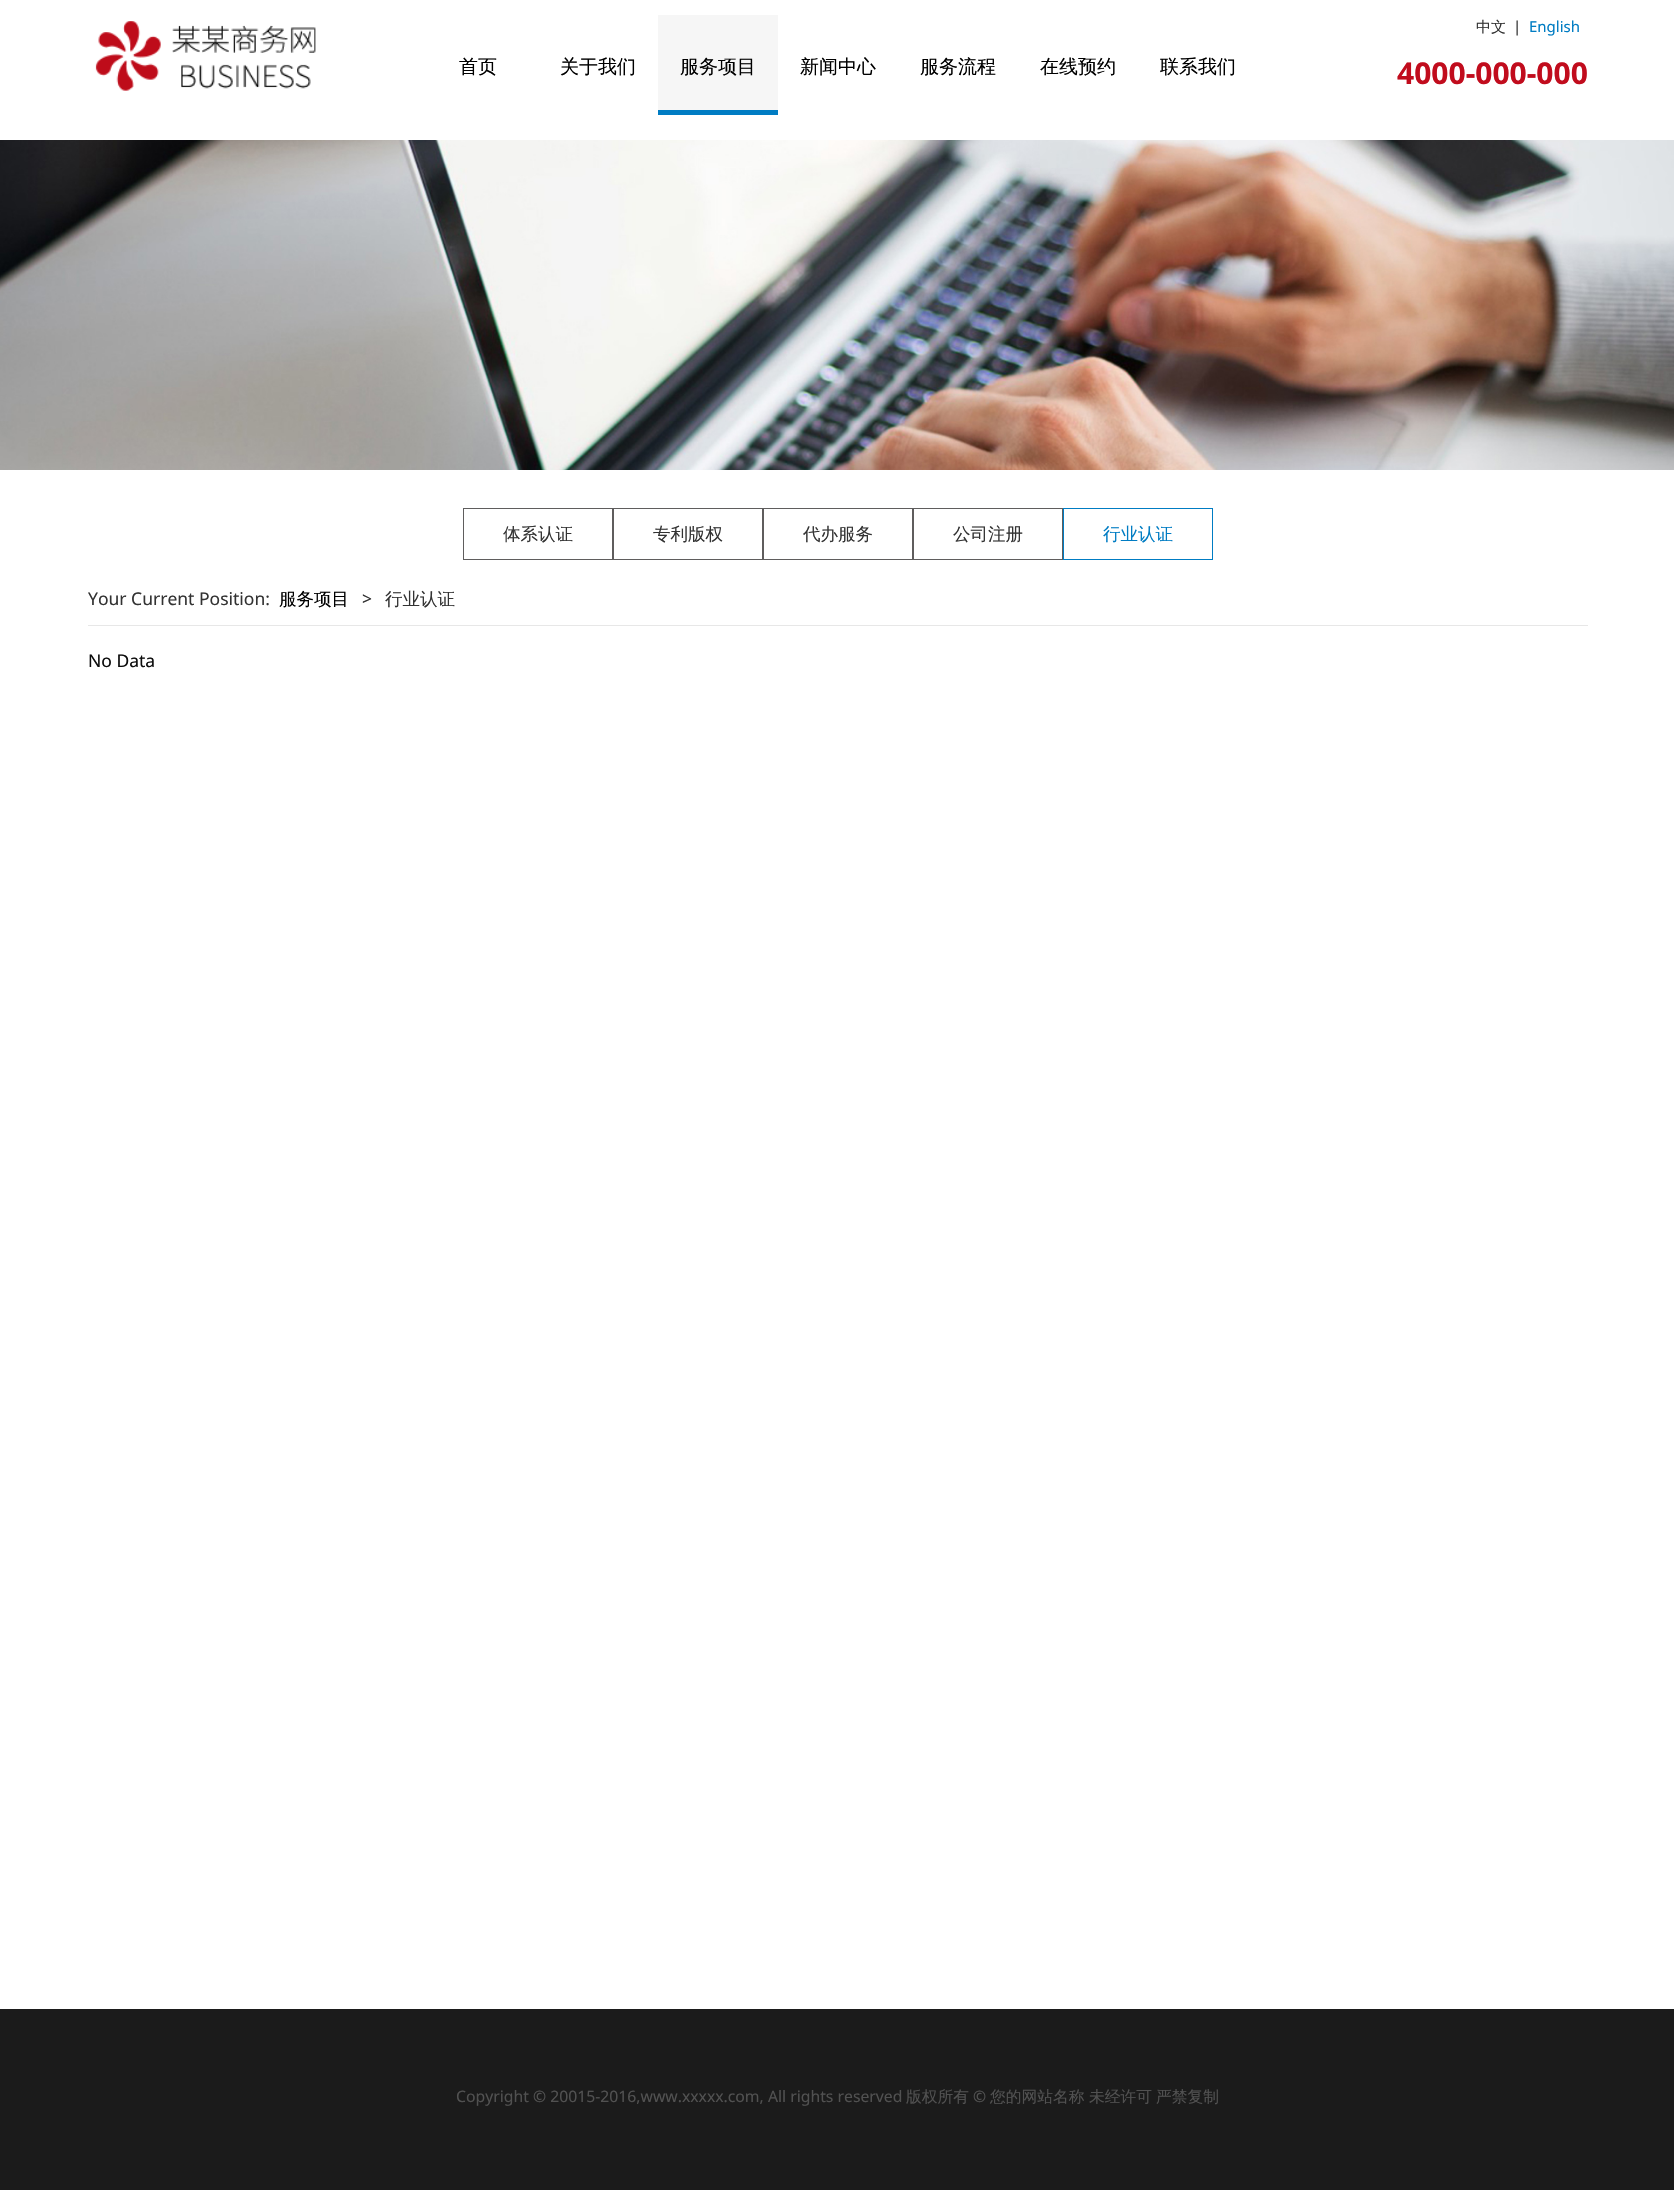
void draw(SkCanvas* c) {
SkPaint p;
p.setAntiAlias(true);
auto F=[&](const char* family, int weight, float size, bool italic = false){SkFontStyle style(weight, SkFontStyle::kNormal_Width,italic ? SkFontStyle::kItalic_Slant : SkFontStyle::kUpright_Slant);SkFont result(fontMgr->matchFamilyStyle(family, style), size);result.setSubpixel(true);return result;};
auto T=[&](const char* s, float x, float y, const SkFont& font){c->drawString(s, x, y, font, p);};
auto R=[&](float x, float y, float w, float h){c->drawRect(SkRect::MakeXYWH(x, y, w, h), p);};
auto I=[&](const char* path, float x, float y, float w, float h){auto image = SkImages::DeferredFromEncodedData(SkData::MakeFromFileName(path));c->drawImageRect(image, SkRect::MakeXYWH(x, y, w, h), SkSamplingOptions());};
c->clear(0xffffffff);
I("1.png",95,21,221,70);
auto f1 = F("WenQuanYi Zen Hei",500,19);
p.setColor(0xff000000);
T("首页",459,73,f1);
T("关于我们",560,73,f1);
p.setColor(0xfff6f6f6);
R(658,15,120,95);
p.setColor(0xff000000);
T("服务项目",680,73,f1);
p.setColor(0xff007cc3);
R(658,110,120,5);
p.setColor(0xff000000);
T("新闻中心",800,73,f1);
T("服务流程",920,73,f1);
T("在线预约",1040,73,f1);
T("联系我们",1160,73,f1);
auto f2 = F("WenQuanYi Zen Hei",500,15);
p.setColor(0xff333333);
T("中文",1476,32,f2);
auto f3 = F("Noto Sans",400,15);
T("|",1513,32,f3);
p.setColor(0xff007cc3);
T("English",1529,32,f3);
auto f4 = F("Noto Sans",700,30);
p.setColor(0xffc10c1d);
T("4000-000-000",1397,84,f4);
I("2.png",0,140,1674,330);
p.setStroke(true);
p.setStrokeWidth(1);
p.setColor(0xff5f5d5d);
c->drawRect(SkRect::MakeXYWH(463.5,508.5,149,51),p);
auto f5 = F("WenQuanYi Zen Hei",500,17.5);
p.setStroke(false);
p.setColor(0xff333333);
T("体系认证",503,540,f5);
p.setStroke(true);
p.setColor(0xff5f5d5d);
c->drawRect(SkRect::MakeXYWH(613.5,508.5,149,51),p);
p.setStroke(false);
p.setColor(0xff333333);
T("专利版权",653,540,f5);
p.setStroke(true);
p.setColor(0xff5f5d5d);
c->drawRect(SkRect::MakeXYWH(763.5,508.5,149,51),p);
p.setStroke(false);
p.setColor(0xff333333);
T("代办服务",803,540,f5);
p.setStroke(true);
p.setColor(0xff5f5d5d);
c->drawRect(SkRect::MakeXYWH(913.5,508.5,149,51),p);
p.setStroke(false);
p.setColor(0xff333333);
T("公司注册",953,540,f5);
p.setStroke(true);
p.setColor(0xff007cc3);
c->drawRect(SkRect::MakeXYWH(1063.5,508.5,149,51),p);
p.setStroke(false);
T("行业认证",1103,540,f5);
p.setColor(0xffe7e7e7);
R(88,625,1500,1);
auto f6 = F("Noto Sans",400,17.5);
p.setColor(0xff333333);
T("Your Current Position:",88,605,f6);
p.setColor(0xff000000);
T("服务项目",279,605,f5);
p.setColor(0xff333333);
T(">",362,605,f6);
T("行业认证",385,605,f5);
p.setColor(0xff0d0d0d);
T("No Data",88,667,f6);
p.setColor(0xff1b1b1b);
R(0,2009,1674,181);
auto f7 = F("Noto Sans",400,15.75);
p.setColor(0xff515151);
T("Copyright © 20015-2016,www.xxxxx.com, All rights reserved",456,2102,f7);
auto f8 = F("WenQuanYi Zen Hei",500,15.75);
T("版权所有",906,2102,f8);
T("©",973,2102,f7);
T("您的网站名称",990,2102,f8);
T("未经许可",1089,2102,f8);
T("严禁复制",1156,2102,f8);
}
